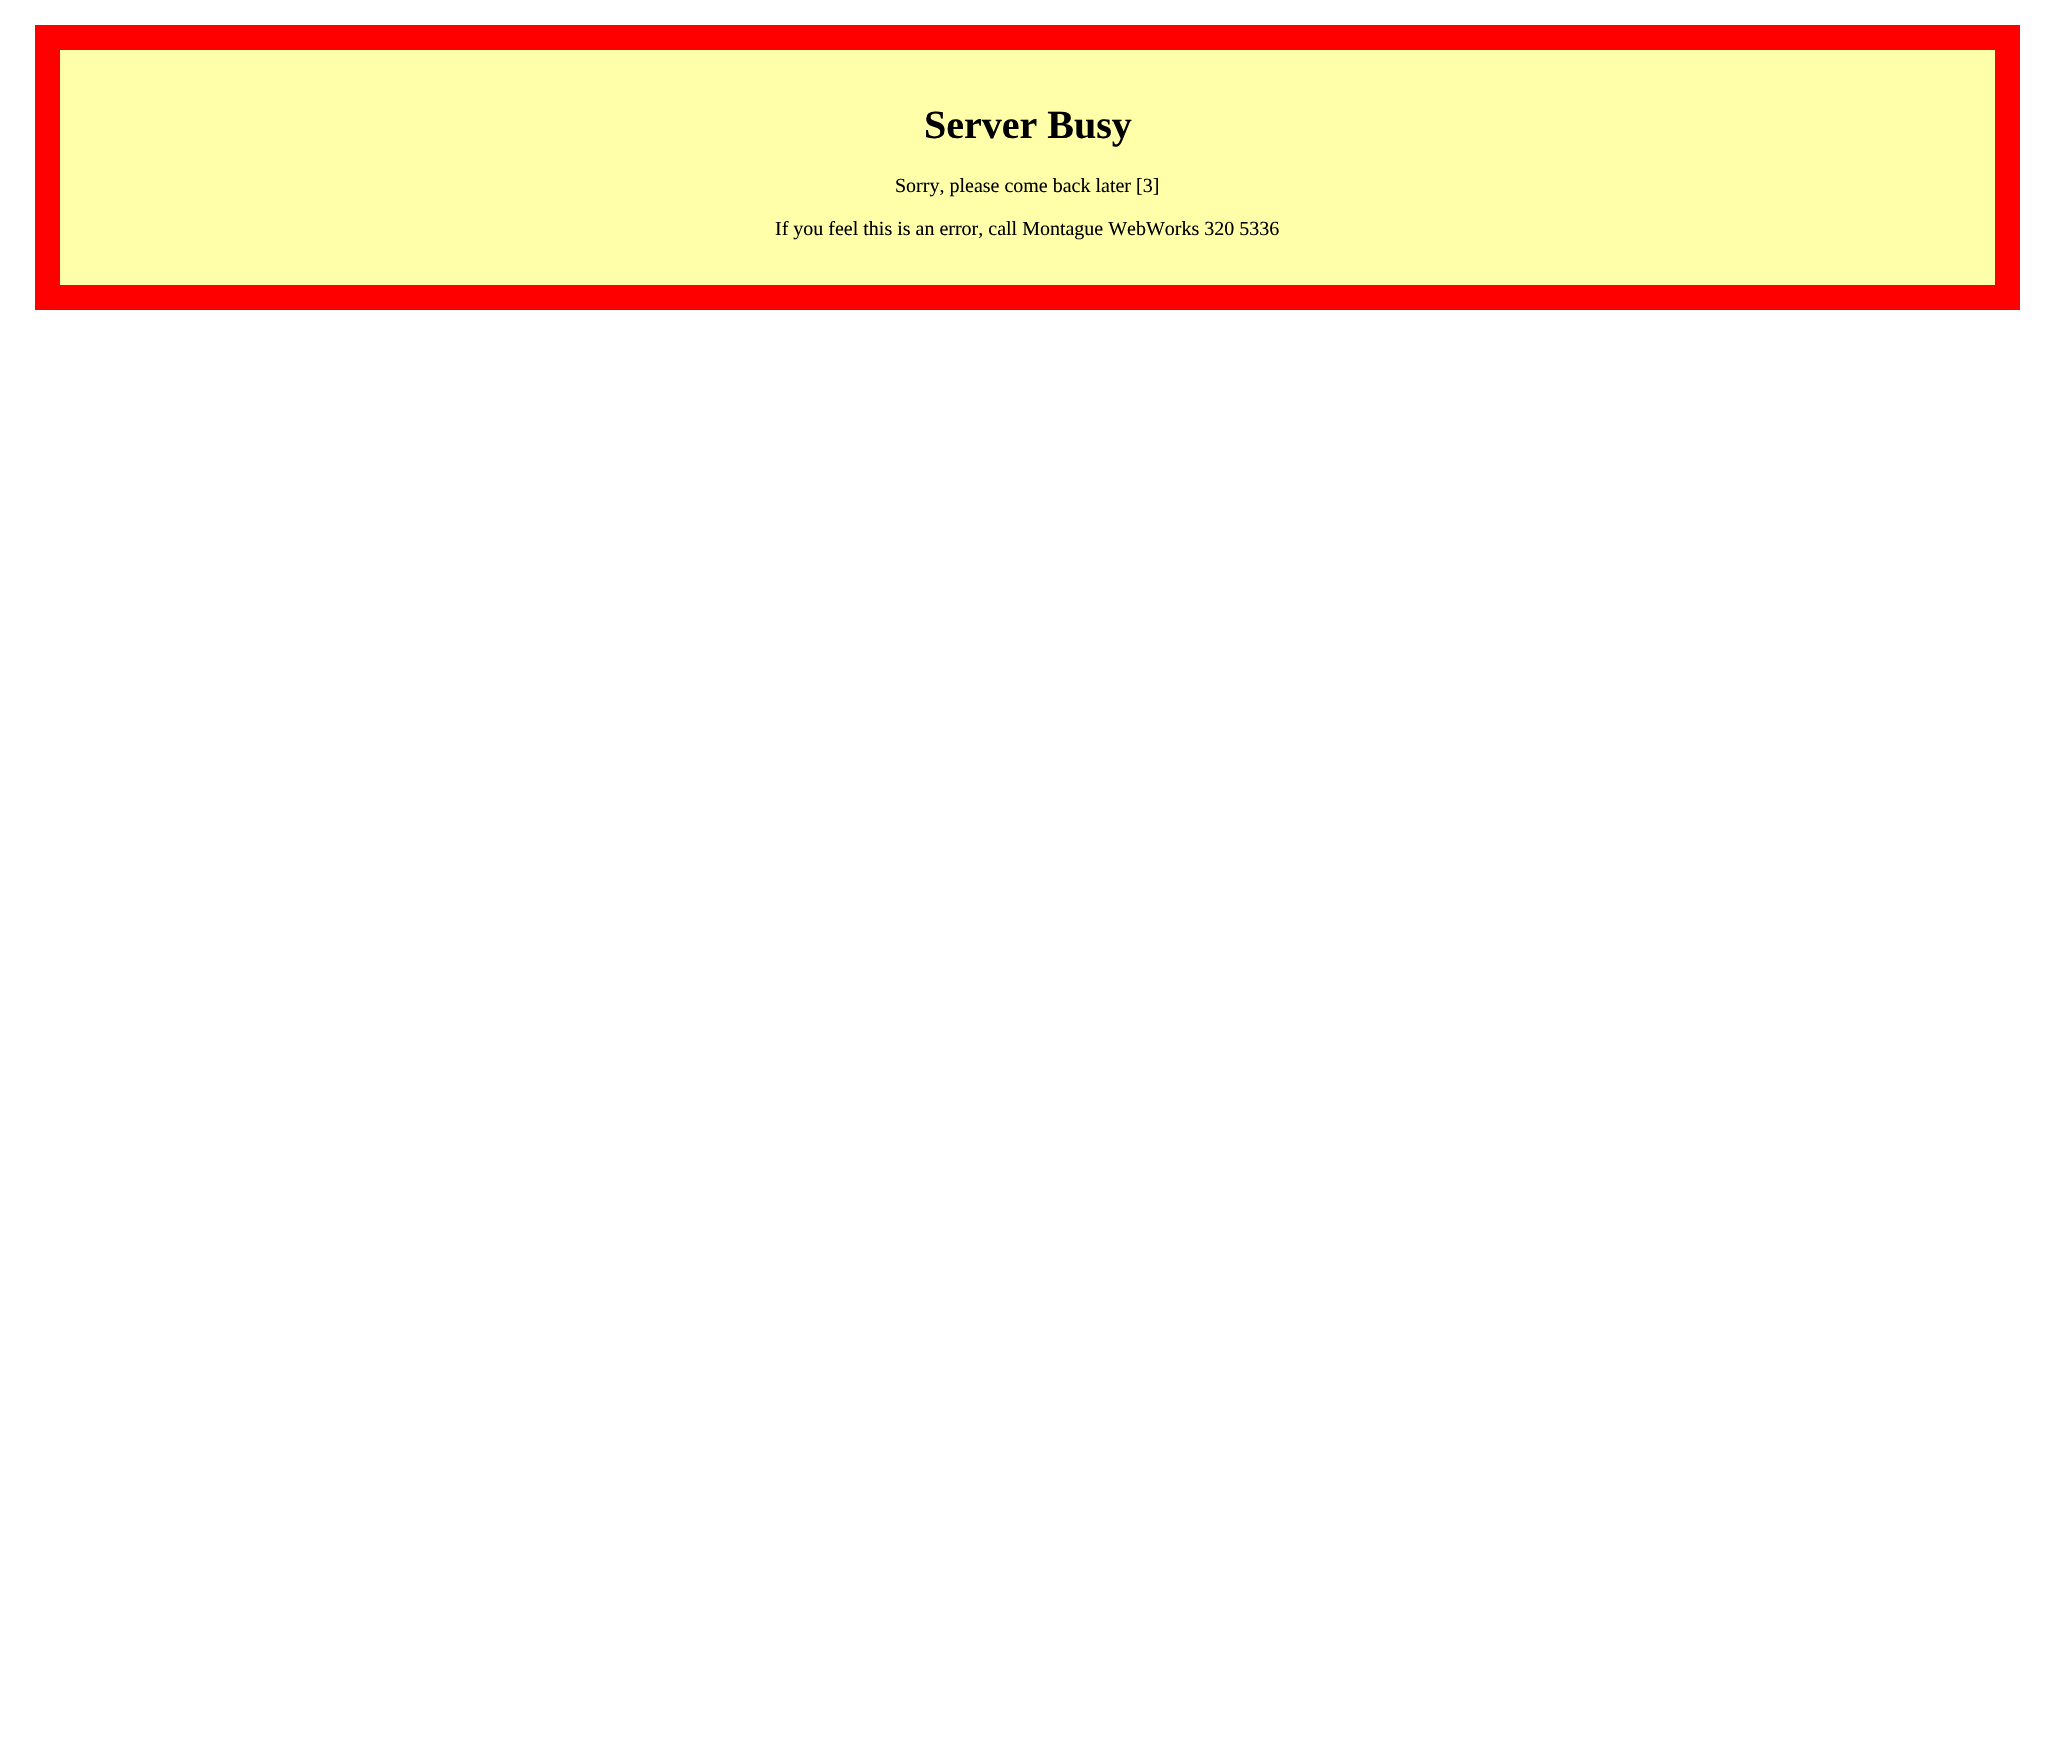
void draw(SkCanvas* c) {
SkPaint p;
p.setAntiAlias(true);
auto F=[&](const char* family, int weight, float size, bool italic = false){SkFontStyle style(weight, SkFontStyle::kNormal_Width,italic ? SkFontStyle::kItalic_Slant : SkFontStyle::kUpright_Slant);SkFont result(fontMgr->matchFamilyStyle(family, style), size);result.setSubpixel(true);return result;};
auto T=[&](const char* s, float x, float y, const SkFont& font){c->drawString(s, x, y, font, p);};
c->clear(0xffffffff);
p.setColor(0xffffffaa);
c->drawRect(SkRect::MakeXYWH(47.5,37.5,1960,260),p);
p.setStroke(true);
p.setStrokeWidth(25);
p.setColor(0xffff0000);
c->drawRect(SkRect::MakeXYWH(47.5,37.5,1960,260),p);
auto f1 = F("Liberation Serif",700,40);
p.setStroke(false);
p.setColor(0xff000000);
T("Server Busy",924,138,f1);
auto f2 = F("Liberation Serif",400,20);
T("Sorry, please come back later [3]",895,192,f2);
T("If you feel this is an error, call Montague WebWorks 320 5336",775,235,f2);
}
